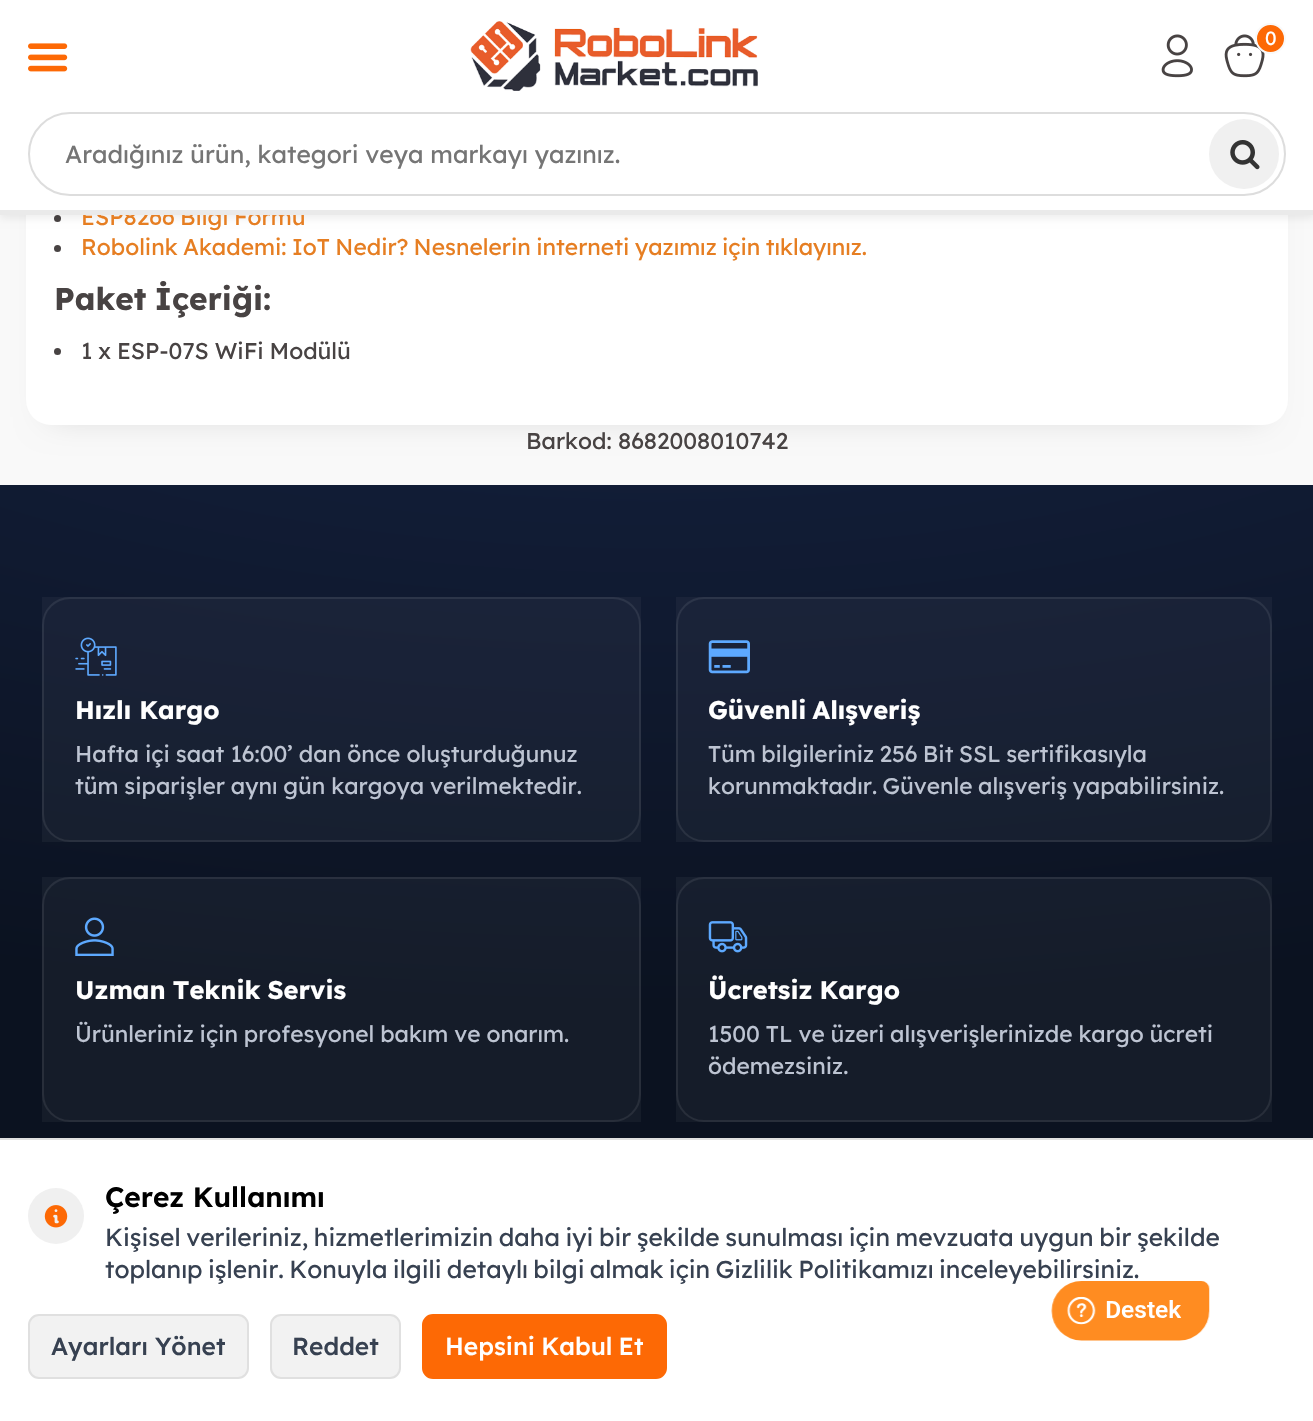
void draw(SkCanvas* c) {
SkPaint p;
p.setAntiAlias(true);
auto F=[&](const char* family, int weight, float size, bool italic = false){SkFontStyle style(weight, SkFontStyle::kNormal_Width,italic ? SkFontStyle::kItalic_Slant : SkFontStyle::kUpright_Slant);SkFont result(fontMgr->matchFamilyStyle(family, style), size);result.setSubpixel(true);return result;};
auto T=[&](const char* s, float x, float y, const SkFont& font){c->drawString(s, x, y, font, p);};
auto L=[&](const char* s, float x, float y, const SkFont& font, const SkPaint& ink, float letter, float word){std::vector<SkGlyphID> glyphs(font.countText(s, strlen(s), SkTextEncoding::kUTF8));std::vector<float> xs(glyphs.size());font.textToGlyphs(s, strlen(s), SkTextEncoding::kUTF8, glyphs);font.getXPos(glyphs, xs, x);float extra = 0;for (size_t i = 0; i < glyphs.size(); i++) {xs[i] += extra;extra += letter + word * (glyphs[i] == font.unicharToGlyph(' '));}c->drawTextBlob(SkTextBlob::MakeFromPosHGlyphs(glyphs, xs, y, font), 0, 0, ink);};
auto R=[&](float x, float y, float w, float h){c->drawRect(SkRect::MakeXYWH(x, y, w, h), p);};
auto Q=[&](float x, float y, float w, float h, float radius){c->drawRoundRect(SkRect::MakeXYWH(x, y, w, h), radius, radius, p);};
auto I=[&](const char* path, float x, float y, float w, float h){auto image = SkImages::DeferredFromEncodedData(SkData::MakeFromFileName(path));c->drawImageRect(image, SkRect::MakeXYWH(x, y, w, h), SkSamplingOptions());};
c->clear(0xfff9f9f9);
p.setColor(0x26000000);
p.setMaskFilter(SkMaskFilter::MakeBlur(kNormal_SkBlurStyle, 16.5));
c->drawRoundRect(SkRect::MakeXYWH(49,-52,1216,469),2,2,p);
p.setMaskFilter(nullptr);
p.setColor(0xffffffff);
Q(26,-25,1262,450,25);
p.setColor(0xff484343);
c->drawCircle(57.5,218.5,3.5,p);
p.setColor(0x0f000000);
p.setMaskFilter(SkMaskFilter::MakeBlur(kNormal_SkBlurStyle, 3.5));
c->drawRect(SkRect::MakeXYWH(0,4,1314,215),p);
p.setMaskFilter(nullptr);
auto f1 = F("Lexend",400,22.75);
p.setColor(0xffe67e22);
L("ESP8266 Bilgi Formu",81,225,f1,p,0,-1);
p.setColor(0xffffffff);
R(0,0,1313,210);
p.setColor(0xffeaeaea);
R(0,210,1313,5);
I("1.png",470,21,288,70);
I("2.png",1161,34,32,44);
I("3.png",1224,34,41,44);
p.setColor(0xfffd6905);
c->drawCircle(1270.5,38.5,14.5,p);
p.setStroke(true);
p.setStrokeWidth(2);
p.setColor(0xfff9f9f9);
c->drawCircle(1270.5,38.5,14.5,p);
auto f2 = F("Lexend",400,19);
p.setStroke(false);
p.setColor(0xffffffff);
T("0",1265,45,f2);
I("4.png",28,43,40,29);
p.setStroke(true);
p.setColor(0xffdddddd);
c->drawRoundRect(SkRect::MakeXYWH(29,113,1256,82),41,41,p);
auto f3 = F("Lexend",400,24.5);
p.setStroke(false);
p.setColor(0xff757575);
T("Aradığınız ürün, kategori veya markayı yazınız.",65,163,f3);
p.setColor(0xfff0f0f0);
c->drawCircle(1244,154,35,p);
I("5.png",1230,140,30,30);
p.setColor(0xff484343);
c->drawCircle(57.5,248.5,3.5,p);
p.setColor(0xffe67e22);
L("Robolink Akademi:",81,255,f1,p,0,-1);
L("IoT Nedir? Nesnelerin interneti",292,255,f1,p,0,-1);
L("yazımız için tıklayınız.",635,255,f1,p,0,-1);
auto f4 = F("Lexend",700,31.5);
p.setColor(0xff484343);
L("Paket İçeriği:",54,310,f4,p,0,-2);
c->drawCircle(57.5,351.5,3.5,p);
L("1 x ESP-07S WiFi Modülü",81,359,f1,p,0,-.5);
T("Barkod: 8682008010742",526,449,f1);
{
const SkColor colors[] = {0xff162445,0xff0b1220};
const float stops[] = {0,1};
SkMatrix m = SkMatrix::Translate(657,135).preScale(2100,875);
p.setShader(SkGradientShader::MakeRadial({0, 0}, 1, colors, stops, 2, SkTileMode::kClamp, 0, &m));
p.setAlpha(255);
}
R(0,485,1313,653);
p.setShader(nullptr);
p.setColor(0x0affffff);
R(42,597,599,245);
p.setStroke(true);
p.setColor(0x14ffffff);
c->drawRoundRect(SkRect::MakeXYWH(43,598,597,243),27,27,p);
I("6.png",75,637,42,39);
auto f5 = F("Lexend",700,25.4);
p.setStroke(false);
p.setColor(0xffffffff);
T("Hızlı Kargo",75,719,f5);
p.setColor(0xffbdc4d2);
L("Hafta içi saat 16:00’ dan önce oluşturduğunuz",75,762,f1,p,0,-.25);
L("tüm siparişler aynı gün kargoya verilmektedir.",75,794,f1,p,0,-.5);
p.setColor(0x0affffff);
R(676,597,596,245);
p.setStroke(true);
p.setColor(0x14ffffff);
c->drawRoundRect(SkRect::MakeXYWH(677,598,594,243),27,27,p);
I("7.png",708,640,42,34);
p.setStroke(false);
p.setColor(0xffffffff);
L("Güvenli Alışveriş",708,719,f5,p,0,-2);
p.setColor(0xffbdc4d2);
L("Tüm bilgileriniz 256 Bit SSL sertifikasıyla",708,762,f1,p,0,-1);
L("korunmaktadır. Güvenle alışveriş yapabilirsiniz.",708,794,f1,p,0,-1);
p.setColor(0x0affffff);
R(42,877,599,245);
p.setStroke(true);
p.setColor(0x14ffffff);
c->drawRoundRect(SkRect::MakeXYWH(43,878,597,243),27,27,p);
I("8.png",75,917,39,39);
p.setStroke(false);
p.setColor(0xffffffff);
L("Uzman Teknik Servis",75,999,f5,p,0,-1);
p.setColor(0xffbdc4d2);
L("Ürünleriniz için profesyonel bakım ve onarım.",75,1042,f1,p,0,-.5);
p.setColor(0x0affffff);
R(676,877,596,245);
p.setStroke(true);
p.setColor(0x14ffffff);
c->drawRoundRect(SkRect::MakeXYWH(677,878,594,243),27,27,p);
I("9.png",708,921,40,32);
p.setStroke(false);
p.setColor(0xffffffff);
L("Ücretsiz Kargo",708,999,f5,p,0,-1);
p.setColor(0xffbdc4d2);
L("1500 TL ve üzeri alışverişlerinizde kargo ücreti",708,1042,f1,p,0,-.5);
T("ödemezsiniz.",708,1074,f1);
p.setColor(0xffffffff);
R(0,1140,1313,281);
p.setColor(0xffe0e0e0);
R(0,1138,1313,2);
p.setColor(0xfff0f0f0);
c->drawCircle(56,1216,28,p);
I("10.png",44,1205,24,23);
auto f6 = F("Lexend",600,28);
p.setColor(0xff000000);
T("Çerez Kullanımı",105,1207,f6);
p.setColor(0xff374151);
L("Kişisel verileriniz, hizmetlerimizin daha iyi bir şekilde sunulması için mevzuata uygun bir şekilde",105,1246,f3,p,0,-1.25);
L("toplanıp işlenir. Konuyla ilgili detaylı bilgi almak için Gizlilik Politikamızı inceleyebilirsiniz.",105,1278,f3,p,0,-1.5);
p.setColor(0xfff2f2f2);
c->drawRoundRect(SkRect::MakeXYWH(29,1315,219,63),10,10,p);
p.setStroke(true);
p.setColor(0xffe0e0e0);
c->drawRoundRect(SkRect::MakeXYWH(29,1315,219,63),10,10,p);
auto f7 = F("Lexend",500,24.5);
p.setStroke(false);
p.setColor(0xff374151);
T("Ayarları Yönet",51,1355,f7);
p.setColor(0xfff2f2f2);
c->drawRoundRect(SkRect::MakeXYWH(271,1315,129,63),10,10,p);
p.setStroke(true);
p.setColor(0xffe0e0e0);
c->drawRoundRect(SkRect::MakeXYWH(271,1315,129,63),10,10,p);
p.setStroke(false);
p.setColor(0xff374151);
T("Reddet",292,1355,f7);
p.setColor(0xfffd6905);
c->drawRoundRect(SkRect::MakeXYWH(423,1315,243,63),10,10,p);
p.setStroke(true);
c->drawRoundRect(SkRect::MakeXYWH(423,1315,243,63),10,10,p);
p.setStroke(false);
p.setColor(0xffffffff);
L("Hepsini Kabul Et",445,1355,f7,p,0,-1);
I("11.png",1051,1281,159,60);
}
